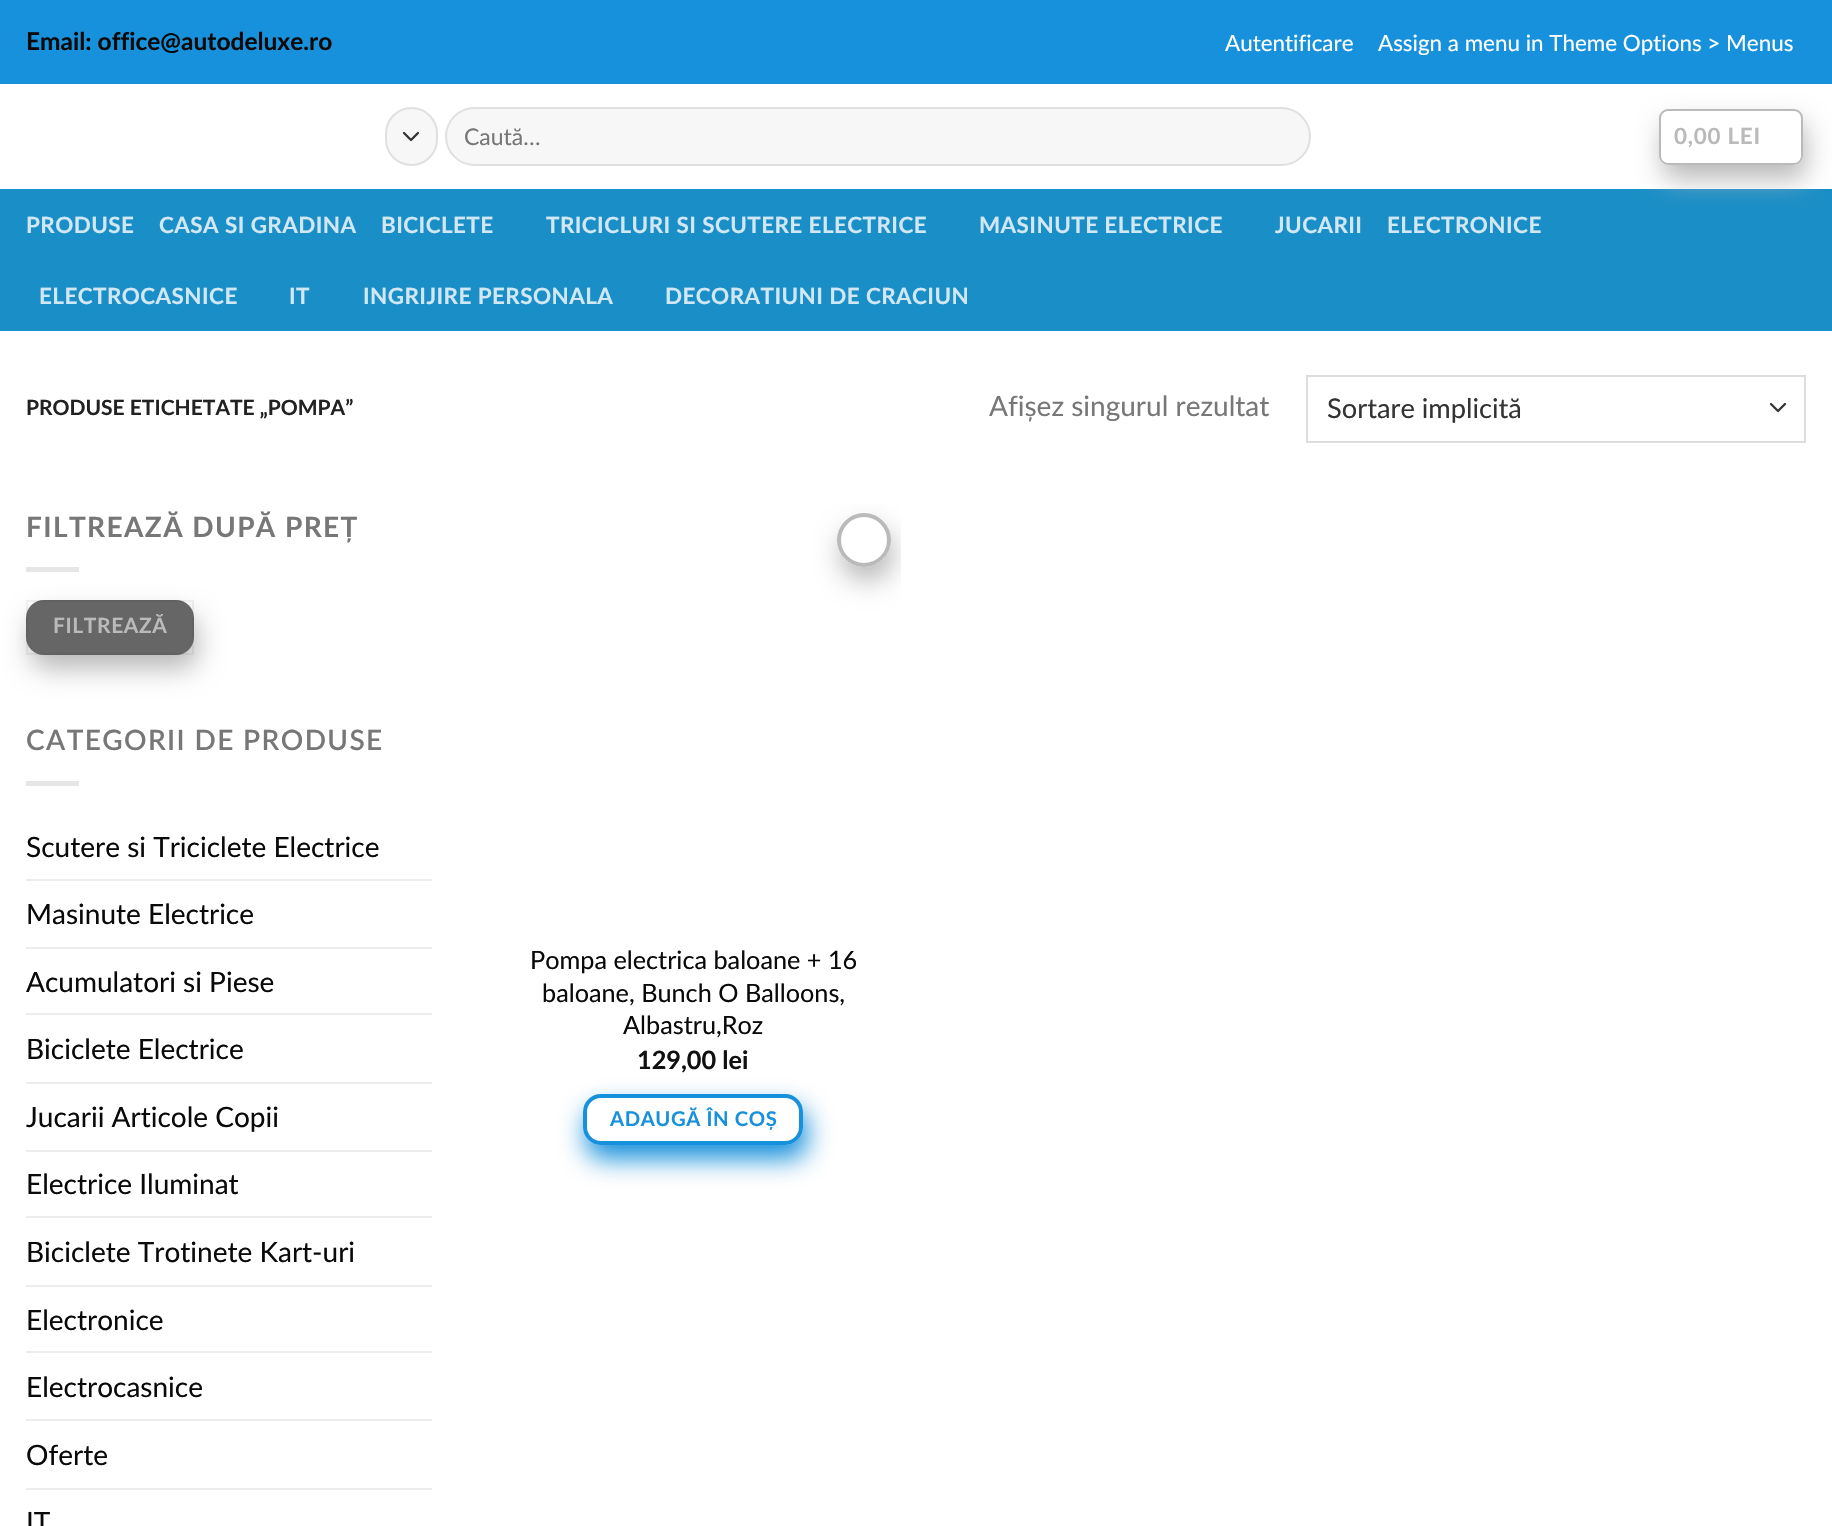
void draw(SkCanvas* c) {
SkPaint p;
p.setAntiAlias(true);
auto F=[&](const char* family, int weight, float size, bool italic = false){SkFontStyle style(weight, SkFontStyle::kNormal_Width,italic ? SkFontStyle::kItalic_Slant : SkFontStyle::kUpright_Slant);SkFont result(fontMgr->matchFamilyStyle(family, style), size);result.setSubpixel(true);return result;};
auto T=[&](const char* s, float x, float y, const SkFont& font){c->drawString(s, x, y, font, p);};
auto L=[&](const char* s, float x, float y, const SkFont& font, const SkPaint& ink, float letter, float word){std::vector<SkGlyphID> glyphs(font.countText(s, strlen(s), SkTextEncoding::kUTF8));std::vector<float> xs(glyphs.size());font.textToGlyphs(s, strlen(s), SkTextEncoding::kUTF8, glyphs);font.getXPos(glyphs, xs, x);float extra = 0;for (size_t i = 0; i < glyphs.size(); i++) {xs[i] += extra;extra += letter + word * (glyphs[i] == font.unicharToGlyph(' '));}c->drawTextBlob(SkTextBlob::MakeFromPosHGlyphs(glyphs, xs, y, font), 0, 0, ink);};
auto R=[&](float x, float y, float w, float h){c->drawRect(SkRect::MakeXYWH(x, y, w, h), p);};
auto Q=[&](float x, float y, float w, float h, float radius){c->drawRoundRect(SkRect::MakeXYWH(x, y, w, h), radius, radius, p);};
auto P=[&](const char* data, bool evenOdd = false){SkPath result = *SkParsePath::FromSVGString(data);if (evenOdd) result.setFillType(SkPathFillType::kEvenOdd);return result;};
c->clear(0xffffffff);
p.setColor(0xff1a8ec6);
R(0,189,1832,142);
c->save();
c->clipPath(P("M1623 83h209v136h-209zm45 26h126c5 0 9 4 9 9v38c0 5-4 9-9 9h-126c-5 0-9-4-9-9v-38c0-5 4-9 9-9z",true),true);
p.setColor(0xffbababa);
p.setMaskFilter(SkMaskFilter::MakeBlur(kNormal_SkBlurStyle, 13));
c->drawRoundRect(SkRect::MakeXYWH(1663,123,143,56),9,9,p);
p.setMaskFilter(nullptr);
c->restore();
p.setColor(0xff1891dc);
R(0,0,1832,84);
auto f1 = F("Lato",700,24.5);
p.setColor(0xff0a0a0a);
T("Email: office@autodeluxe.ro",26,50,f1);
auto f2 = F("Lato",400,22.4);
p.setColor(0xffffffff);
T("Autentificare",1225,51,f2);
T("Assign a menu in Theme Options > Menus",1378,51,f2);
p.setColor(0xfff7f7f7);
Q(385,107,53,59,26.5);
p.setStroke(true);
p.setStrokeWidth(2.3);
p.setStrokeCap(SkPaint::kRound_Cap);
p.setStrokeJoin(SkPaint::kRound_Join);
p.setColor(0xff333333);
c->drawPath(P("M404 133l7 7l7-7"),p);
p.setStrokeWidth(2);
p.setStrokeCap(SkPaint::kButt_Cap);
p.setStrokeJoin(SkPaint::kMiter_Join);
p.setColor(0x17000000);
c->drawRoundRect(SkRect::MakeXYWH(386,108,51,57),25.5,25.5,p);
p.setStroke(false);
p.setColor(0xfff7f7f7);
Q(445,107,866,59,29.5);
p.setStroke(true);
p.setColor(0x17000000);
c->drawRoundRect(SkRect::MakeXYWH(446,108,864,57),28.5,28.5,p);
auto f3 = F("Lato",400,23);
p.setStroke(false);
p.setColor(0xff777777);
T("Caută…",464,145,f3);
p.setStroke(true);
p.setColor(0xffbababa);
c->drawRoundRect(SkRect::MakeXYWH(1660,110,142,54),8,8,p);
auto f4 = F("Lato",700,22.4);
p.setStroke(false);
L("0,00 LEI",1674,144,f4,p,.75,0);
p.setColor(0xffd1e8f4);
L("PRODUSE",26,233,f4,p,.45,0);
L("CASA SI GRADINA",159,233,f4,p,.45,0);
L("BICICLETE",381,233,f4,p,.45,0);
L("TRICICLURI SI SCUTERE ELECTRICE",546,233,f4,p,.45,0);
L("MASINUTE ELECTRICE",979,233,f4,p,.45,0);
L("JUCARII",1275,233,f4,p,.45,0);
L("ELECTRONICE",1387,233,f4,p,.45,0);
L("ELECTROCASNICE",39,304,f4,p,.45,0);
L("IT",289,304,f4,p,.45,0);
L("INGRIJIRE PERSONALA",363,304,f4,p,.45,0);
L("DECORATIUNI DE CRACIUN",665,304,f4,p,.45,0);
auto f5 = F("Lato",700,21);
p.setColor(0xff222222);
T("PRODUSE ETICHETATE „POMPA”",26,415,f5);
auto f6 = F("Lato",400,28);
p.setColor(0xff777777);
T("Afișez singurul rezultat",989,416,f6);
p.setStroke(true);
p.setStrokeWidth(2.3);
p.setStrokeCap(SkPaint::kRound_Cap);
p.setStrokeJoin(SkPaint::kRound_Join);
p.setColor(0xff333333);
c->drawPath(P("M1771 404l7 7l7-7"),p);
p.setStrokeWidth(2);
p.setStrokeCap(SkPaint::kButt_Cap);
p.setStrokeJoin(SkPaint::kMiter_Join);
p.setColor(0xffdddddd);
c->drawRect(SkRect::MakeXYWH(1307,376,498,66),p);
auto f7 = F("Lato",400,27.25);
p.setStroke(false);
p.setColor(0xff333333);
T("Sortare implicită",1327,418,f7);
auto f8 = F("Lato",700,28);
p.setColor(0xff777777);
L("FILTREAZĂ DUPĂ PREȚ",26,537,f8,p,1.4,0);
p.setColor(0xffe6e6e6);
R(26,567,53,5);
p.setColor(0xffbababa);
p.setMaskFilter(SkMaskFilter::MakeBlur(kNormal_SkBlurStyle, 13));
c->drawRoundRect(SkRect::MakeXYWH(30,614,168,55),18,18,p);
p.setMaskFilter(nullptr);
p.setColor(0xff666666);
Q(26,600,168,55,18);
p.setStroke(true);
p.setColor(0x0d000000);
c->drawRect(SkRect::MakeXYWH(27,601,166,53),p);
p.setStroke(false);
p.setColor(0xffbababa);
L("FILTREAZĂ",53,633,f5,p,.6,0);
auto f9 = F("Lato",600,28);
p.setColor(0xff777777);
L("CATEGORII DE PRODUSE",26,750,f9,p,1.4,0);
p.setColor(0xffe6e6e6);
R(26,781,53,5);
p.setColor(0xff0a0a0a);
T("Scutere si Triciclete Electrice",26,857,f6);
p.setColor(0xffececec);
R(26,879,406,2);
p.setColor(0xff0a0a0a);
T("Masinute Electrice",26,924,f6);
p.setColor(0xffececec);
R(26,947,406,2);
p.setColor(0xff0a0a0a);
T("Acumulatori si Piese",26,992,f6);
p.setColor(0xffececec);
R(26,1013,406,2);
p.setColor(0xff0a0a0a);
T("Biciclete Electrice",26,1059,f6);
p.setColor(0xffececec);
R(26,1082,406,2);
p.setColor(0xff0a0a0a);
T("Jucarii Articole Copii",26,1127,f6);
p.setColor(0xffececec);
R(26,1150,406,2);
p.setColor(0xff0a0a0a);
T("Electrice Iluminat",26,1194,f6);
p.setColor(0xffececec);
R(26,1216,406,2);
p.setColor(0xff0a0a0a);
T("Biciclete Trotinete Kart-uri",26,1262,f6);
p.setColor(0xffececec);
R(26,1285,406,2);
p.setColor(0xff0a0a0a);
T("Electronice",26,1330,f6);
p.setColor(0xffececec);
R(26,1351,406,2);
p.setColor(0xff0a0a0a);
T("Electrocasnice",26,1397,f6);
p.setColor(0xffececec);
R(26,1419,406,2);
p.setColor(0xff0a0a0a);
T("Oferte",26,1465,f6);
p.setColor(0xffececec);
R(26,1488,406,2);
p.setColor(0xff0a0a0a);
T("IT",26,1532,f6);
c->save();
c->clipRect(SkRect::MakeXYWH(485,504,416,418));
c->clipPath(P("M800 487h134v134h-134zm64 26c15 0 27 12 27 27c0 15-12 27-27 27c-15 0-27-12-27-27c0-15 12-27 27-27z",true),true);
p.setColor(0xffbababa);
p.setMaskFilter(SkMaskFilter::MakeBlur(kNormal_SkBlurStyle, 13));
c->drawRoundRect(SkRect::MakeXYWH(840,527,54,54),27,27,p);
p.setMaskFilter(nullptr);
c->restore();
p.setStroke(true);
p.setStrokeWidth(4);
c->drawCircle(864,540,25,p);
auto f10 = F("Lato",400,25.25);
p.setStroke(false);
p.setColor(0xff0a0a0a);
T("Pompa electrica baloane + 16",530,969,f10);
T("baloane, Bunch O Balloons,",542,1002,f10);
T("Albastru,Roz",623,1034,f10);
auto f11 = F("Lato",700,25.25);
p.setColor(0xff111111);
T("129,00 lei",637,1069,f11);
c->save();
c->clipPath(P("M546 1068h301v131h-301zm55 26h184c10 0 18 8 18 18v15c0 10-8 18-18 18h-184c-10 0-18-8-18-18v-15c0-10 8-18 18-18z",true),true);
p.setColor(0xff1891dc);
p.setMaskFilter(SkMaskFilter::MakeBlur(kNormal_SkBlurStyle, 13));
c->drawRoundRect(SkRect::MakeXYWH(586,1108,221,51),18,18,p);
p.setMaskFilter(nullptr);
c->restore();
p.setStroke(true);
c->drawRoundRect(SkRect::MakeXYWH(585,1096,216,47),16,16,p);
auto f12 = F("Lato",700,20.25);
p.setStroke(false);
L("ADAUGĂ ÎN COȘ",610,1126,f12,p,.6,0);
}
